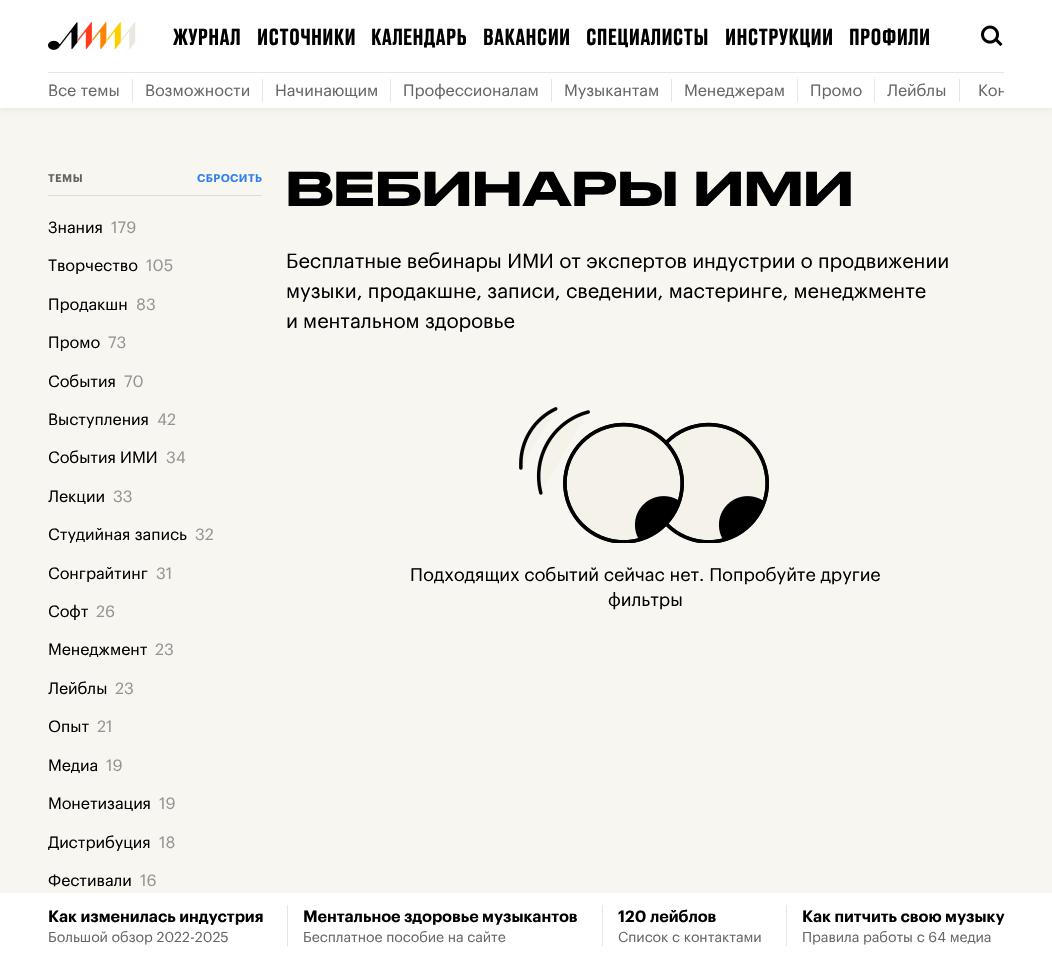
void draw(SkCanvas* c) {
SkPaint p;
p.setAntiAlias(true);
auto F=[&](const char* family, int weight, float size, bool italic = false){SkFontStyle style(weight, SkFontStyle::kNormal_Width,italic ? SkFontStyle::kItalic_Slant : SkFontStyle::kUpright_Slant);SkFont result(fontMgr->matchFamilyStyle(family, style), size);result.setSubpixel(true);return result;};
auto T=[&](const char* s, float x, float y, const SkFont& font){c->drawString(s, x, y, font, p);};
auto L=[&](const char* s, float x, float y, const SkFont& font, const SkPaint& ink, float letter, float word){std::vector<SkGlyphID> glyphs(font.countText(s, strlen(s), SkTextEncoding::kUTF8));std::vector<float> xs(glyphs.size());font.textToGlyphs(s, strlen(s), SkTextEncoding::kUTF8, glyphs);font.getXPos(glyphs, xs, x);float extra = 0;for (size_t i = 0; i < glyphs.size(); i++) {xs[i] += extra;extra += letter + word * (glyphs[i] == font.unicharToGlyph(' '));}c->drawTextBlob(SkTextBlob::MakeFromPosHGlyphs(glyphs, xs, y, font), 0, 0, ink);};
auto R=[&](float x, float y, float w, float h){c->drawRect(SkRect::MakeXYWH(x, y, w, h), p);};
auto I=[&](const char* path, float x, float y, float w, float h){auto image = SkImages::DeferredFromEncodedData(SkData::MakeFromFileName(path));c->drawImageRect(image, SkRect::MakeXYWH(x, y, w, h), SkSamplingOptions());};
c->clear(0xfff8f6f1);
p.setColor(0x0d000000);
p.setMaskFilter(SkMaskFilter::MakeBlur(kNormal_SkBlurStyle, 2));
c->drawRect(SkRect::MakeXYWH(0,2,1052,108),p);
p.setMaskFilter(nullptr);
p.setColor(0xffffffff);
R(0,0,1052,108);
I("1.png",48,22,88,28);
auto f1 = F("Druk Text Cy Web",500,22);
p.setColor(0xff000000);
L("ЖУРНАЛ",173,45,f1,p,.25,0);
L("ИСТОЧНИКИ",257,45,f1,p,.25,0);
L("КАЛЕНДАРЬ",371,45,f1,p,.25,0);
L("ВАКАНСИИ",483,45,f1,p,.25,0);
L("СПЕЦИАЛИСТЫ",586,45,f1,p,.25,0);
L("ИНСТРУКЦИИ",725,45,f1,p,.25,0);
L("ПРОФИЛИ",849,45,f1,p,.25,0);
I("2.png",981,25,22,22);
p.setColor(0xffe6e6e6);
R(48,72,956,1);
auto f2 = F("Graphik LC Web",400,16);
p.setColor(0xff666666);
T("Все темы",48,96,f2);
p.setColor(0xffe6e6e6);
R(132,79,1,23);
p.setColor(0xff666666);
T("Возможности",145,96,f2);
p.setColor(0xffe6e6e6);
R(262,79,1,23);
p.setColor(0xff666666);
T("Начинающим",275,96,f2);
p.setColor(0xffe6e6e6);
R(390,79,1,23);
p.setColor(0xff666666);
T("Профессионалам",403,96,f2);
p.setColor(0xffe6e6e6);
R(551,79,1,23);
p.setColor(0xff666666);
T("Музыкантам",564,96,f2);
p.setColor(0xffe6e6e6);
R(671,79,1,23);
p.setColor(0xff666666);
T("Менеджерам",684,96,f2);
p.setColor(0xffe6e6e6);
R(797,79,1,23);
p.setColor(0xff666666);
T("Промо",810,96,f2);
p.setColor(0xffe6e6e6);
R(874,79,1,23);
p.setColor(0xff666666);
T("Лейблы",887,96,f2);
p.setColor(0xffe6e6e6);
R(959,79,1,23);
c->save();
c->clipRect(SkRect::MakeXYWH(48,73,956,35));
p.setColor(0xff666666);
T("Кон",978,96,f2);
c->restore();
p.setColor(0xffffffff);
R(0,893,1052,65);
auto f3 = F("Graphik LC Web",600,16);
p.setColor(0xff000000);
T("Как изменилась индустрия",48,922,f3);
auto f4 = F("Graphik LC Web",400,14);
p.setColor(0xff666666);
T("Большой обзор 2022-2025",48,942,f4);
p.setColor(0xffe6e6e6);
R(287,905,1,41);
p.setColor(0xff000000);
T("Ментальное здоровье музыкантов",303,922,f3);
p.setColor(0xff666666);
T("Бесплатное пособие на сайте",303,942,f4);
p.setColor(0xffe6e6e6);
R(602,905,1,41);
p.setColor(0xff000000);
T("120 лейблов",618,922,f3);
p.setColor(0xff666666);
T("Список с контактами",618,942,f4);
p.setColor(0xffe6e6e6);
R(786,905,1,41);
p.setColor(0xff000000);
T("Как питчить свою музыку",802,922,f3);
p.setColor(0xff666666);
T("Правила работы с 64 медиа",802,942,f4);
p.setColor(0xffdfddd9);
R(48,195,214,1);
auto f5 = F("Graphik LC Web",600,11);
p.setColor(0xff636260);
L("ТЕМЫ",48,182,f5,p,.5,0);
p.setColor(0xff2f80ed);
L("СБРОСИТЬ",197,182,f5,p,.5,0);
p.setColor(0xff000000);
T("Знания",48,233,f2);
p.setColor(0xff959491);
T("179",111,233,f2);
p.setColor(0xff000000);
T("Творчество",48,271,f2);
p.setColor(0xff959491);
T("105",146,271,f2);
p.setColor(0xff000000);
T("Продакшн",48,310,f2);
p.setColor(0xff959491);
T("83",136,310,f2);
p.setColor(0xff000000);
T("Промо",48,348,f2);
p.setColor(0xff959491);
T("73",108,348,f2);
p.setColor(0xff000000);
T("События",48,387,f2);
p.setColor(0xff959491);
T("70",124,387,f2);
p.setColor(0xff000000);
T("Выступления",48,425,f2);
p.setColor(0xff959491);
T("42",157,425,f2);
p.setColor(0xff000000);
T("События ИМИ",48,463,f2);
p.setColor(0xff959491);
T("34",166,463,f2);
p.setColor(0xff000000);
T("Лекции",48,502,f2);
p.setColor(0xff959491);
T("33",113,502,f2);
p.setColor(0xff000000);
T("Студийная запись",48,540,f2);
p.setColor(0xff959491);
T("32",195,540,f2);
p.setColor(0xff000000);
T("Сонграйтинг",48,579,f2);
p.setColor(0xff959491);
T("31",156,579,f2);
p.setColor(0xff000000);
T("Софт",48,617,f2);
p.setColor(0xff959491);
T("26",96,617,f2);
p.setColor(0xff000000);
T("Менеджмент",48,655,f2);
p.setColor(0xff959491);
T("23",155,655,f2);
p.setColor(0xff000000);
T("Лейблы",48,694,f2);
p.setColor(0xff959491);
T("23",115,694,f2);
p.setColor(0xff000000);
T("Опыт",48,732,f2);
p.setColor(0xff959491);
T("21",97,732,f2);
p.setColor(0xff000000);
T("Медиа",48,771,f2);
p.setColor(0xff959491);
T("19",106,771,f2);
p.setColor(0xff000000);
T("Монетизация",48,809,f2);
p.setColor(0xff959491);
T("19",159,809,f2);
p.setColor(0xff000000);
T("Дистрибуция",48,848,f2);
p.setColor(0xff959491);
T("18",159,848,f2);
p.setColor(0xff000000);
T("Фестивали",48,886,f2);
p.setColor(0xff959491);
T("16",140,886,f2);
auto f6 = F("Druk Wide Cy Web",500,46);
p.setColor(0xff000000);
L("ВЕБИНАРЫ ИМИ",286,206,f6,p,1,0);
auto f7 = F("Graphik LC Web",400,20);
T("Бесплатные вебинары ИМИ от экспертов индустрии о продвижении",286,268,f7);
T("музыки, продакшне, записи, сведении, мастеринге, менеджменте",286,298,f7);
T("и ментальном здоровье",286,328,f7);
I("3.png",519,407,250,136);
auto f8 = F("Graphik LC Web",400,18);
T("Подходящих событий сейчас нет. Попробуйте другие",410,581,f8);
T("фильтры",608,606,f8);
}
